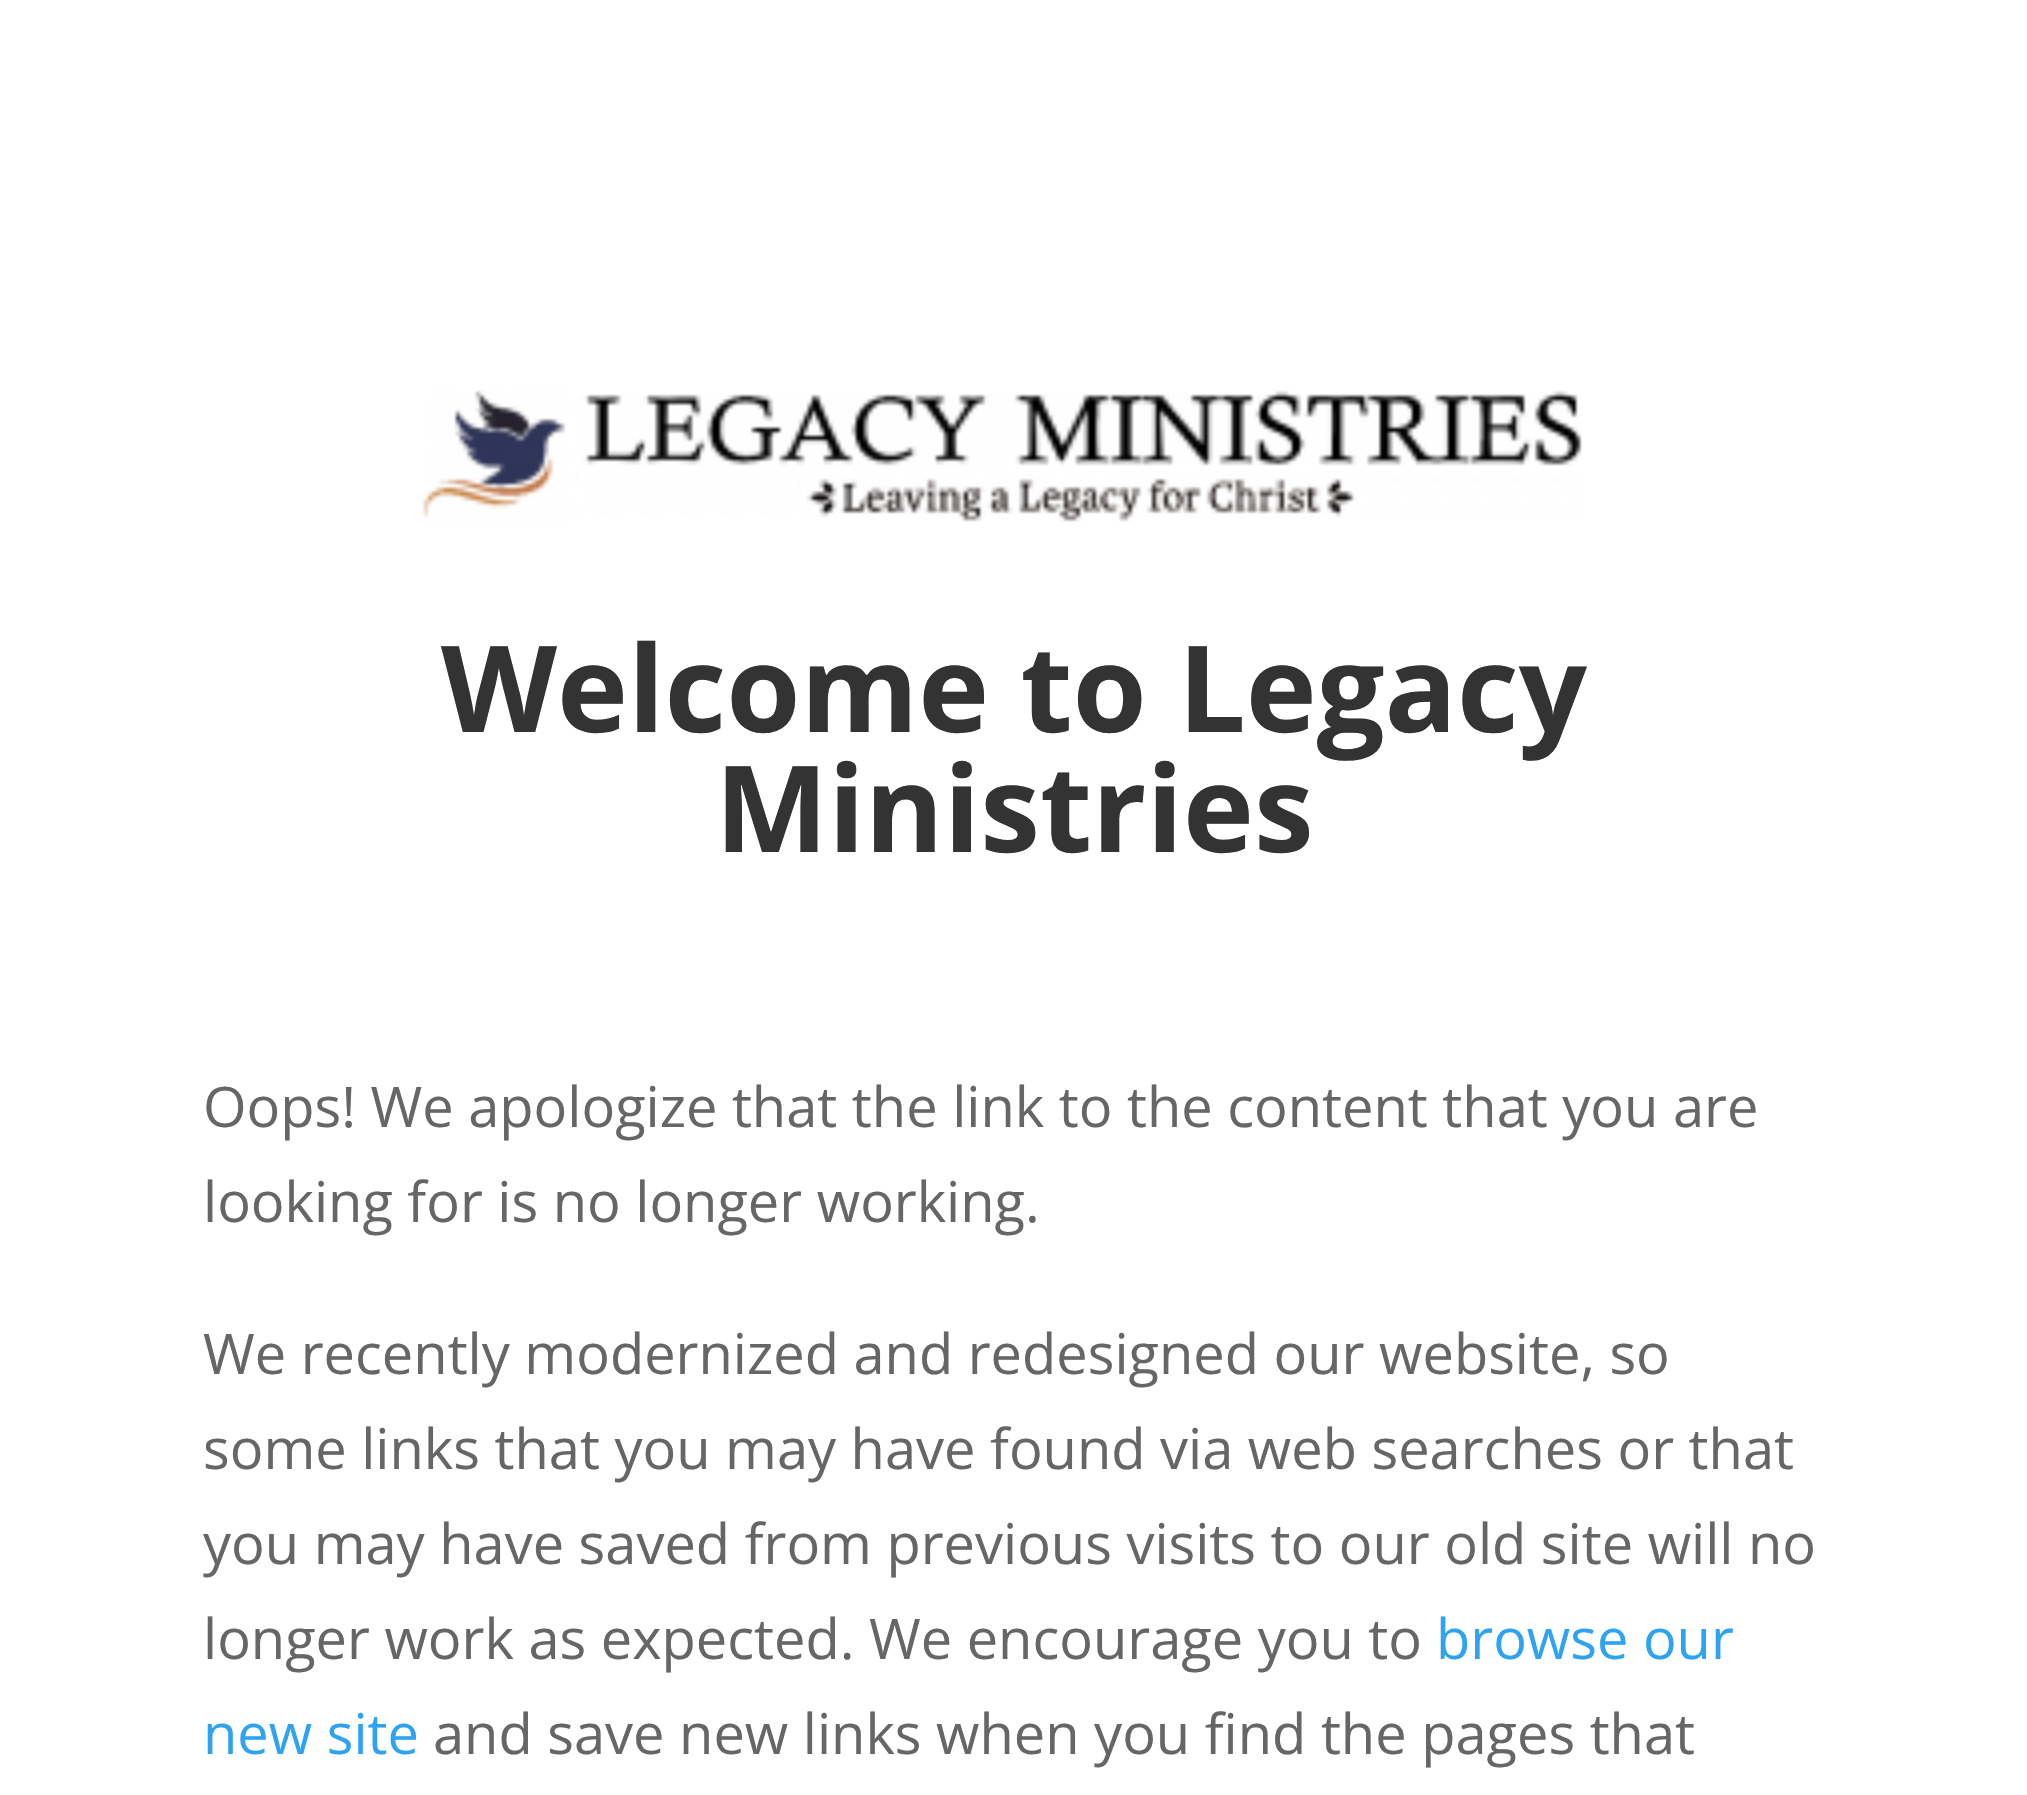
void draw(SkCanvas* c) {
SkPaint p;
p.setAntiAlias(true);
auto F=[&](const char* family, int weight, float size, bool italic = false){SkFontStyle style(weight, SkFontStyle::kNormal_Width,italic ? SkFontStyle::kItalic_Slant : SkFontStyle::kUpright_Slant);SkFont result(fontMgr->matchFamilyStyle(family, style), size);result.setSubpixel(true);return result;};
auto T=[&](const char* s, float x, float y, const SkFont& font){c->drawString(s, x, y, font, p);};
auto I=[&](const char* path, float x, float y, float w, float h){auto image = SkImages::DeferredFromEncodedData(SkData::MakeFromFileName(path));c->drawImageRect(image, SkRect::MakeXYWH(x, y, w, h), SkSamplingOptions());};
c->clear(0xffffffff);
I("1.png",422,390,1160,132);
auto f1 = F("Open Sans",700,120);
p.setColor(0xff333333);
T("Welcome to Legacy",441,732,f1);
T("Ministries",715,852,f1);
auto f2 = F("Open Sans",400,56);
p.setColor(0xff666666);
T("Oops! We apologize that the link to the content that you are",203,1127,f2);
T("looking for is no longer working.",203,1222,f2);
T("We recently modernized and redesigned our website, so",203,1374,f2);
T("some links that you may have found via web searches or that",203,1469,f2);
T("you may have saved from previous visits to our old site will no",203,1564,f2);
T("longer work as expected. We encourage you to",203,1659,f2);
p.setColor(0xff2ea3f2);
T("browse our",1436,1659,f2);
T("new site",203,1754,f2);
p.setColor(0xff666666);
T("and save new links when you find the pages that",433,1754,f2);
}
